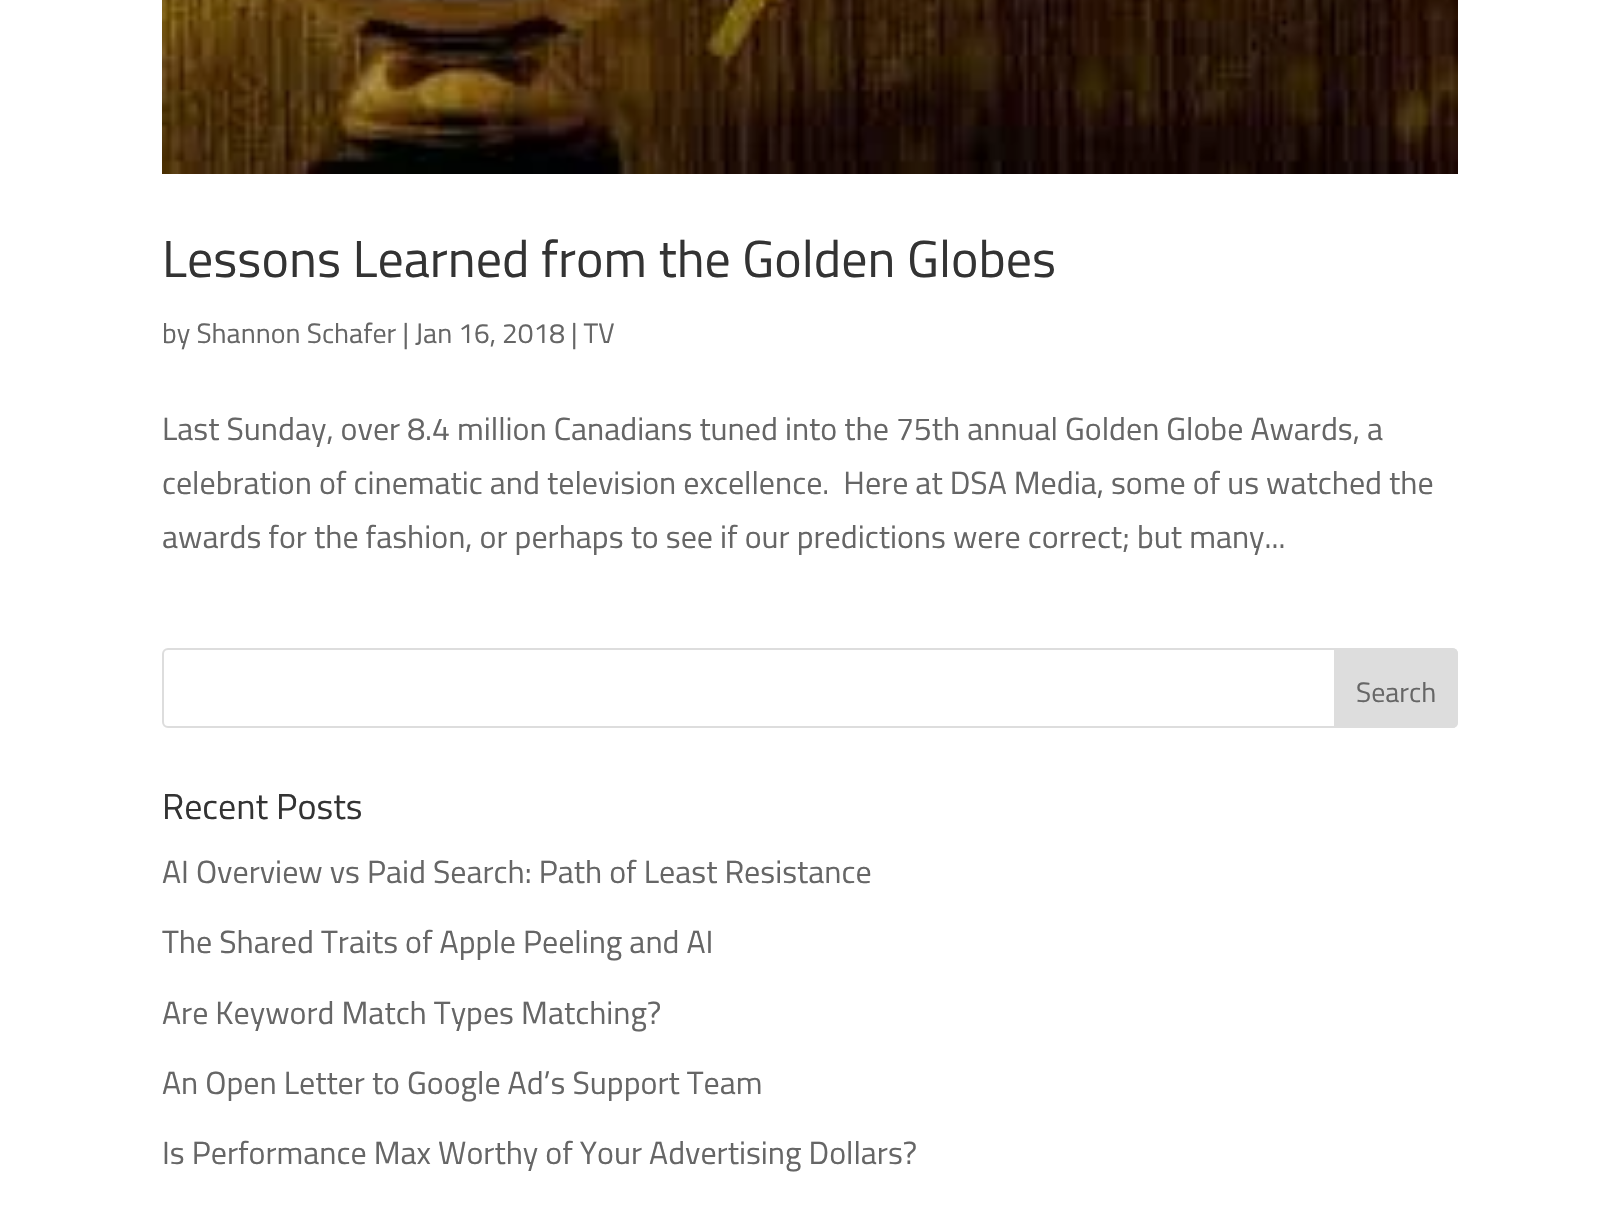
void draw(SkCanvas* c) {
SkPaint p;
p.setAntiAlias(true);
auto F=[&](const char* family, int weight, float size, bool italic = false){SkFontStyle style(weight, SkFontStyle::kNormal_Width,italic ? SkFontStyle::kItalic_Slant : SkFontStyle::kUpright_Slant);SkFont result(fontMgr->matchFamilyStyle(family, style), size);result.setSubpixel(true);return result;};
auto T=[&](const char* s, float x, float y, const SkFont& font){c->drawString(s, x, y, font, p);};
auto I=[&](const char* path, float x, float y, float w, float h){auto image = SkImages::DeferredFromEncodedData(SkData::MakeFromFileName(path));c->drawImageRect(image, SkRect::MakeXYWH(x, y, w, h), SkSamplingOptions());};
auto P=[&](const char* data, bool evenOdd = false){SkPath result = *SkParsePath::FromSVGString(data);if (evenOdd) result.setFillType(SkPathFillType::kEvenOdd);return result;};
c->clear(0xffffffff);
I("1.png",162,0,1296,174);
auto f1 = F("Titillium Web",400,52);
p.setColor(0xff333333);
T("Lessons Learned from the Golden Globes",162,277,f1);
auto f2 = F("Titillium Web",400,28);
p.setColor(0xff666666);
T("by Shannon Schafer | Jan 16, 2018 | TV",162,343,f2);
auto f3 = F("Titillium Web",400,32);
T("Last Sunday, over 8.4 million Canadians tuned into the 75th annual Golden Globe Awards, a",162,440,f3);
T("celebration of cinematic and television excellence.  Here at DSA Media, some of us watched the",162,494,f3);
T("awards for the fashion, or perhaps to see if our predictions were correct; but many...",162,548,f3);
p.setStroke(true);
p.setStrokeWidth(2);
p.setColor(0xffdddddd);
c->drawRoundRect(SkRect::MakeXYWH(163,649,1294,78),5,5,p);
p.setStroke(false);
c->drawPath(P("M1335 649h117c3 0 5 2 5 5v68c0 3-2 5-5 5h-117z"),p);
p.setStroke(true);
c->drawPath(P("M1335 649h117c3 0 5 2 5 5v68c0 3-2 5-5 5h-117z"),p);
p.setStroke(false);
p.setColor(0xff666666);
T("Search",1356,702,f2);
auto f4 = F("Titillium Web",400,36);
p.setColor(0xff333333);
T("Recent Posts",162,819,f4);
p.setColor(0xff666666);
T("AI Overview vs Paid Search: Path of Least Resistance",162,883,f3);
T("The Shared Traits of Apple Peeling and AI",162,953,f3);
T("Are Keyword Match Types Matching?",162,1024,f3);
T("An Open Letter to Google Ad’s Support Team",162,1094,f3);
T("Is Performance Max Worthy of Your Advertising Dollars?",162,1164,f3);
}
